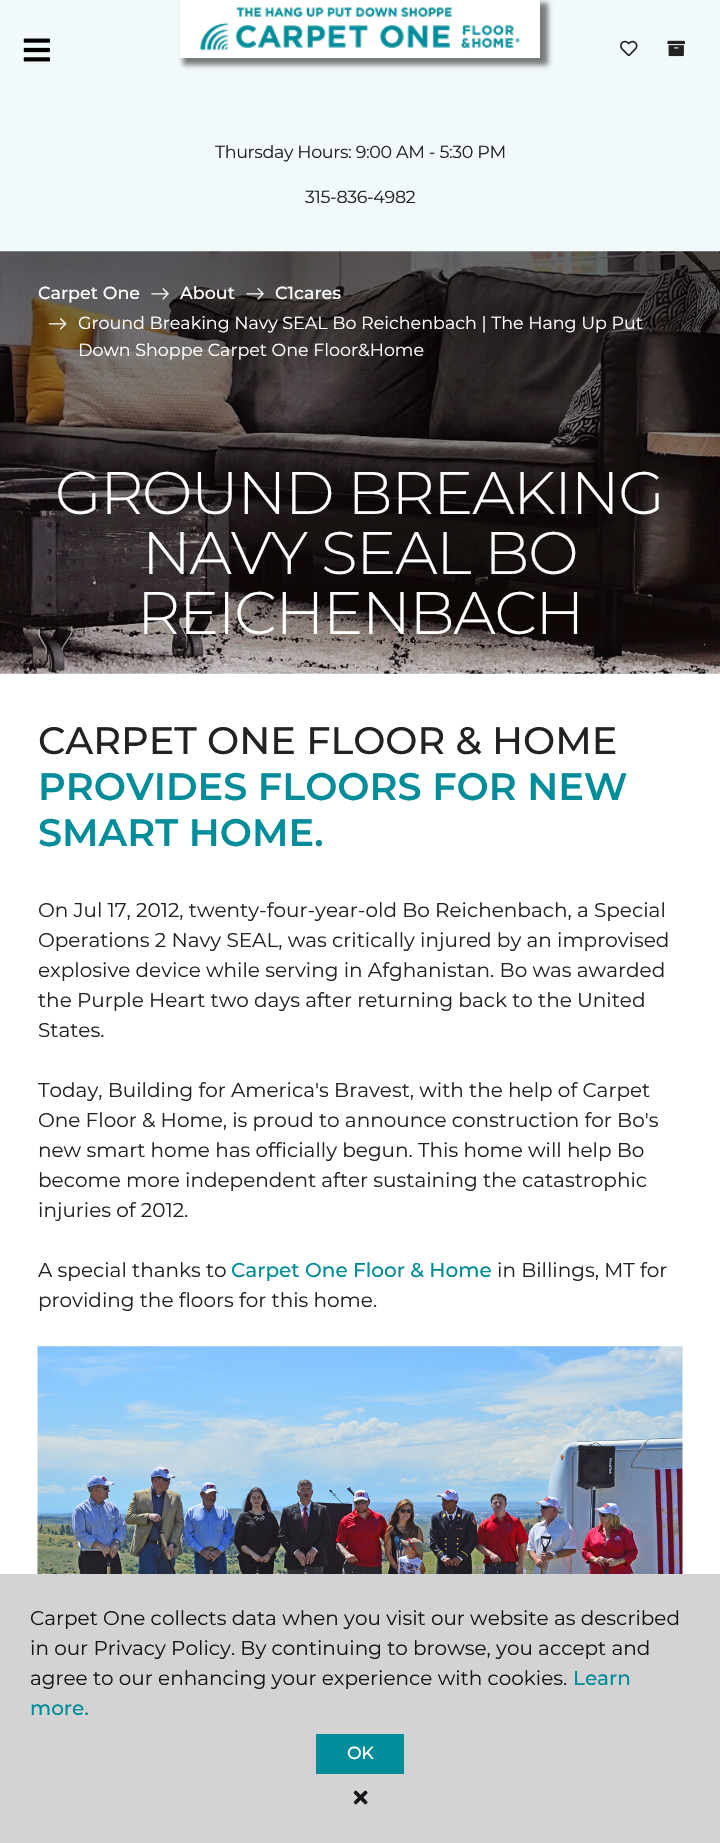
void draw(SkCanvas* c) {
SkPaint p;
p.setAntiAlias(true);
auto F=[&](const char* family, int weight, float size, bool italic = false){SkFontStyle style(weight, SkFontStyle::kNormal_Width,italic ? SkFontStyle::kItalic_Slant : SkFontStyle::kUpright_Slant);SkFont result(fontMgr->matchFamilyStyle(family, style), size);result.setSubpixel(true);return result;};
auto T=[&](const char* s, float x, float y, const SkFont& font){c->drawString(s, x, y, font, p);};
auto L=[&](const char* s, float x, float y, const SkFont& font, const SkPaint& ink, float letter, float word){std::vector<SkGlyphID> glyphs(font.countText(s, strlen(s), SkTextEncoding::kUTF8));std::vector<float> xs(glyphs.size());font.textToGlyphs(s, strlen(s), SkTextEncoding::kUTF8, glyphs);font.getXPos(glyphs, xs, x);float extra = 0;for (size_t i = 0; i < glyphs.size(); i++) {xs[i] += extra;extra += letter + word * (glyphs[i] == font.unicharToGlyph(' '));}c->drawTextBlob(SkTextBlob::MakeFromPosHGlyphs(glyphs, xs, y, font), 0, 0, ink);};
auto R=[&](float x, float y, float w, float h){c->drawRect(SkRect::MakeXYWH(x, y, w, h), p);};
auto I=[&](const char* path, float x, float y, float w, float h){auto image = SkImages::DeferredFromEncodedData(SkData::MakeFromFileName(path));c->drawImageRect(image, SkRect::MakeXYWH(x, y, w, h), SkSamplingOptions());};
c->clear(0xffffffff);
p.setColor(0xfff2f9fa);
R(0,0,720,251);
I("1.png",23,38,27,24);
p.setColor(0x80000000);
p.setMaskFilter(SkMaskFilter::MakeBlur(kNormal_SkBlurStyle, 2.5));
c->drawRect(SkRect::MakeXYWH(183,3,365,62),p);
p.setMaskFilter(nullptr);
p.setColor(0xffffffff);
R(180,0,360,58);
I("2.png",200,7,320,44);
I("3.png",620,40,18,17);
I("4.png",667,40,18,17);
auto f1 = F("Montserrat",400,17.5);
p.setColor(0xff222222);
L("Thursday Hours: 9:00 AM - 5:30 PM",215,158,f1,p,-.35,0);
L("315-836-4982",305,203,f1,p,-.35,0);
I("5.png",0,251,720,423);
auto f2 = F("Montserrat",500,17.5);
p.setColor(0xffffffff);
T("Carpet One",38,299,f2);
I("6.png",151,288,18,12);
T("About",180,299,f2);
I("7.png",246,288,18,12);
T("C1cares",275,299,f2);
I("8.png",48,318,19,12);
T("Ground Breaking Navy SEAL Bo Reichenbach | The Hang Up Put",78,329,f1);
T("Down Shoppe Carpet One Floor&Home",78,356,f1);
auto f3 = F("Montserrat",300,60);
L("GROUND BREAKING",55,514,f3,p,-1.25,0);
L("NAVY SEAL BO",142,574,f3,p,-1.25,0);
L("REICHENBACH",137,634,f3,p,-1.25,0);
auto f4 = F("Montserrat",500,38.25);
p.setColor(0xff222222);
T("CARPET ONE FLOOR & HOME",38,754,f4);
auto f5 = F("Montserrat",600,38.25);
p.setColor(0xff008c99);
T("PROVIDES FLOORS FOR NEW",38,800,f5);
T("SMART HOME.",38,846,f5);
auto f6 = F("Montserrat",400,20);
p.setColor(0xff222222);
T("On Jul 17, 2012, twenty-four-year-old Bo Reichenbach, a Special",38,917,f6);
T("Operations 2 Navy SEAL, was critically injured by an improvised",38,947,f6);
T("explosive device while serving in Afghanistan. Bo was awarded",38,977,f6);
T("the Purple Heart two days after returning back to the United",38,1007,f6);
T("States.",38,1037,f6);
T("Today, Building for America's Bravest, with the help of Carpet",38,1097,f6);
T("One Floor & Home, is proud to announce construction for Bo's",38,1127,f6);
T("new smart home has officially begun. This home will help Bo",38,1157,f6);
T("become more independent after sustaining the catastrophic",38,1187,f6);
T("injuries of 2012.",38,1217,f6);
T("A special thanks to",38,1277,f6);
auto f7 = F("Montserrat",500,20);
p.setColor(0xff008c99);
T("Carpet One Floor & Home",231,1277,f7);
p.setColor(0xff222222);
T("in Billings, MT for",497,1277,f6);
T("providing the floors for this home.",38,1307,f6);
I("9.png",37,1346,646,228);
p.setColor(0xffd3d3d4);
R(0,1574,720,269);
p.setColor(0xff141619);
T("Carpet One collects data when you visit our website as described",30,1625,f6);
T("in our Privacy Policy. By continuing to browse, you accept and",30,1655,f6);
T("agree to our enhancing your experience with cookies.",30,1685,f6);
p.setColor(0xff008c99);
T("Learn",573,1685,f7);
T("more.",30,1715,f7);
R(316,1734,88,40);
p.setColor(0xffffffff);
L("OK",347,1759,f2,p,-.35,0);
I("10.png",353,1790,15,15);
}
